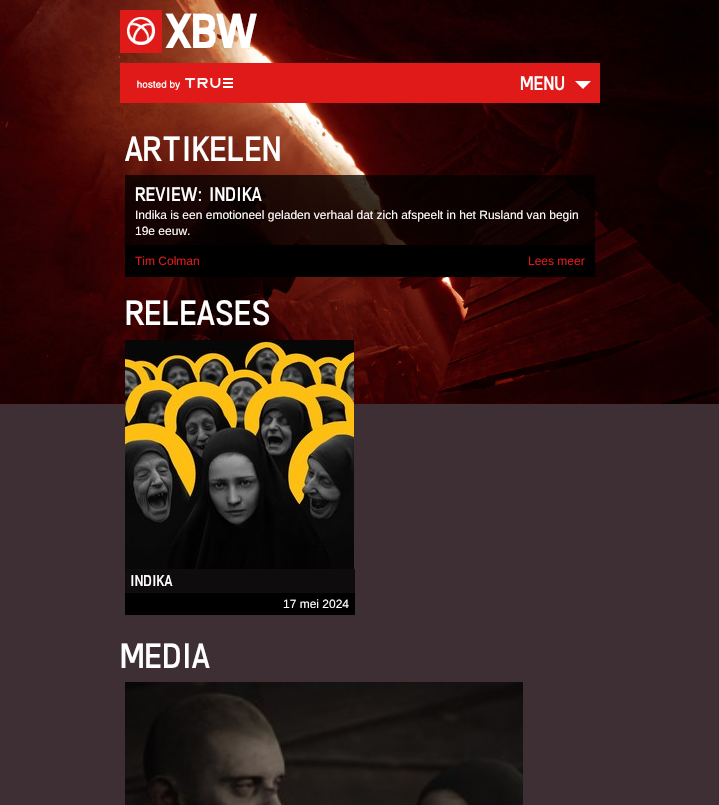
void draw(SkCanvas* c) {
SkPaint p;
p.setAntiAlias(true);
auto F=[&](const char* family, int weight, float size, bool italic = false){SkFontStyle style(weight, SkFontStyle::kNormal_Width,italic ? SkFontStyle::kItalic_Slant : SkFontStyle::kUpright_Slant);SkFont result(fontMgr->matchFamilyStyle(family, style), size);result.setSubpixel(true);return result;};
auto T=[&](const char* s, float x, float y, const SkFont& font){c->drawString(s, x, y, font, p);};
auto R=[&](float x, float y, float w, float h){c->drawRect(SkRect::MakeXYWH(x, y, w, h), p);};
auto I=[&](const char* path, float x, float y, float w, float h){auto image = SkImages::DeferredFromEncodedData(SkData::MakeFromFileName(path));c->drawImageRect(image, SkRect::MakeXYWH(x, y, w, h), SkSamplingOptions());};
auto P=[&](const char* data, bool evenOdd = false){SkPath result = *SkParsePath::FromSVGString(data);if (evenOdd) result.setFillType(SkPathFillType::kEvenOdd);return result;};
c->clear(0xff3d2f33);
I("1.png",0,0,719,404);
p.setColor(0xffe01919);
R(120,10,42,43);
I("2.png",127,17,28,28);
auto f1 = F("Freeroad",700,48);
p.setColor(0xffffffff);
T("XBW",165,48,f1);
p.setColor(0xffe01919);
R(120,63,480,40);
I("3.png",137,78,96,12);
auto f2 = F("Freeroad",400,20);
p.setColor(0xffffffff);
T("MENU",520,90,f2);
c->drawPath(P("M575 81h16l-8 8z"),p);
auto f3 = F("Freeroad",400,36);
T("ARTIKELEN",125,161,f3);
p.setColor(0xbf000000);
R(125,175,470,70);
p.setColor(0xffffffff);
T("REVIEW: INDIKA",135,201,f2);
auto f4 = F("Liberation Sans",400,12);
T("Indika is een emotioneel geladen verhaal dat zich afspeelt in het Rusland van begin",135,219,f4);
T("19e eeuw.",135,235,f4);
p.setColor(0xff000000);
R(125,245,470,32);
p.setColor(0xffe01919);
T("Tim Colman",135,265,f4);
T("Lees meer",528,265,f4);
p.setColor(0xffffffff);
T("RELEASES",125,325,f3);
I("4.png",125,340,229,229);
p.setColor(0xff0f0c0d);
R(125,569,230,24);
auto f5 = F("Freeroad",400,16);
p.setColor(0xffffffff);
T("INDIKA",130,586,f5);
p.setColor(0xff000000);
R(125,593,230,22);
p.setColor(0xffffffff);
T("17 mei 2024",283,608,f4);
T("MEDIA",120,668,f3);
I("5.png",125,682,398,123);
}
